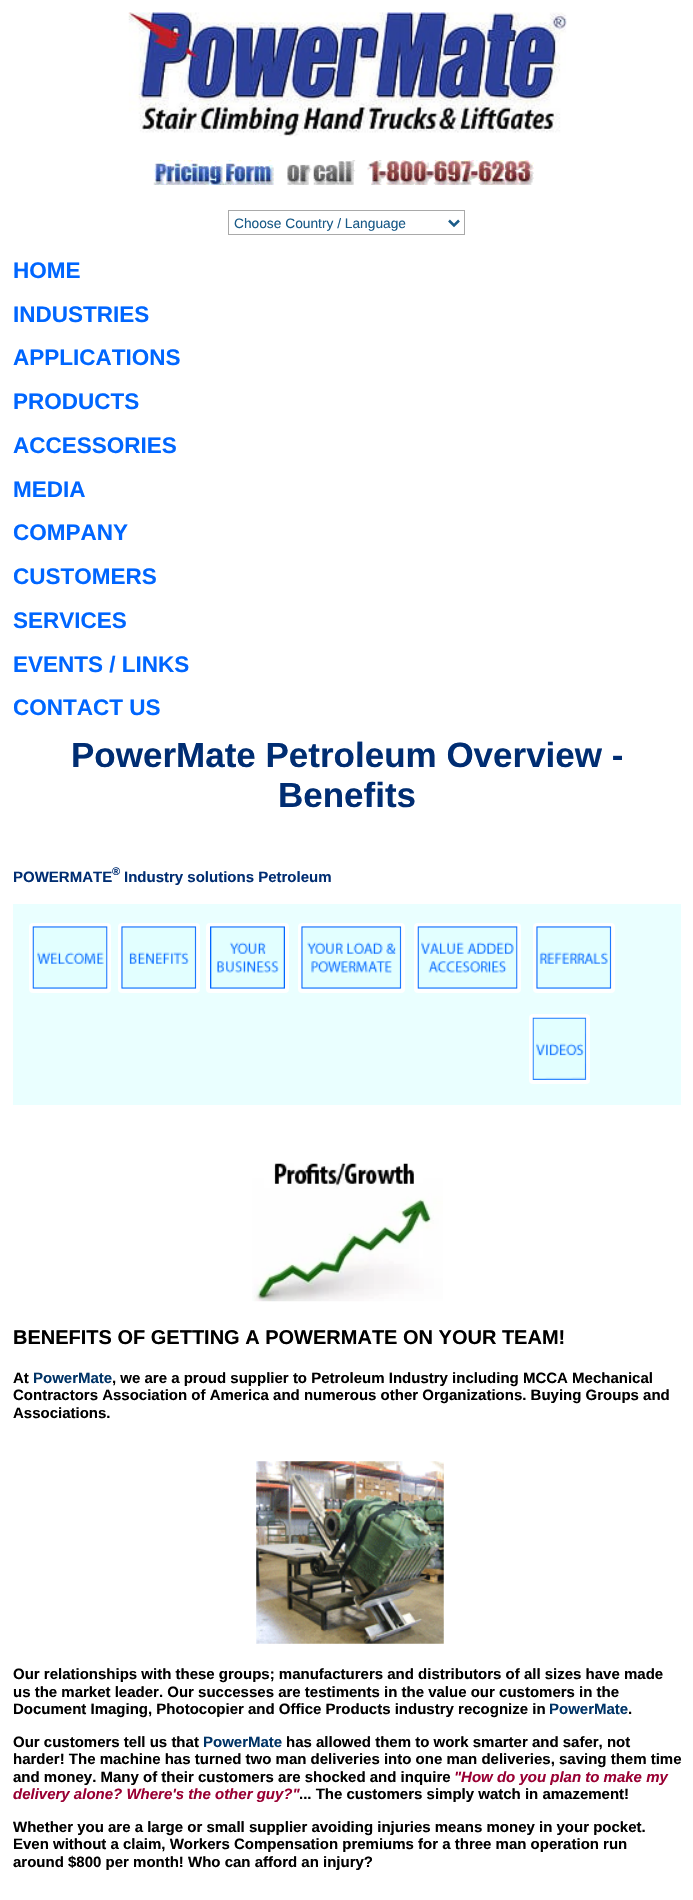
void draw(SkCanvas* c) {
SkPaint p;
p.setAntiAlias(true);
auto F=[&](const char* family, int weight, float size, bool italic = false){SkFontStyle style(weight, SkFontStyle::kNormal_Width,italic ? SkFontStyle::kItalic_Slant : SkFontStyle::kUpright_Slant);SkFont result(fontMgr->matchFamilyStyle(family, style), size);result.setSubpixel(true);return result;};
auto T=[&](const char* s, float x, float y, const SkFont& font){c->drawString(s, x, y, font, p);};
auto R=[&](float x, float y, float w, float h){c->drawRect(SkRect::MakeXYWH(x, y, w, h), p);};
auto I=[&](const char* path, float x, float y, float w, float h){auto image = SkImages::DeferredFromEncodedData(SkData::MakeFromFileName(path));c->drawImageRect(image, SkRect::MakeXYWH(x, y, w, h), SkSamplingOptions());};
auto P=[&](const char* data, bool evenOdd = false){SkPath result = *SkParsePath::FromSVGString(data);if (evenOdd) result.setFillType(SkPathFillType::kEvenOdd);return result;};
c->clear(0xffffffff);
I("1.png",128,12,439,125);
I("2.png",153,160,381,25);
p.setStroke(true);
p.setStrokeWidth(1);
p.setColor(0xffa9a9a9);
c->drawRect(SkRect::MakeXYWH(228.5,210.5,236,24),p);
p.setStrokeWidth(2.5);
p.setColor(0xff1a5b88);
c->drawPath(P("M449 220.5l5 5l5-5"),p);
auto f1 = F("Liberation Sans",400,13.75);
p.setStroke(false);
T("Choose Country / Language",234,228,f1);
auto f2 = F("Liberation Sans",700,22.5);
p.setColor(0xff0066ff);
T("HOME",13,278,f2);
T("INDUSTRIES",13,322,f2);
T("APPLICATIONS",13,365,f2);
T("PRODUCTS",13,409,f2);
T("ACCESSORIES",13,453,f2);
T("MEDIA",13,497,f2);
T("COMPANY",13,540,f2);
T("CUSTOMERS",13,584,f2);
T("SERVICES",13,628,f2);
T("EVENTS / LINKS",13,672,f2);
T("CONTACT US",13,715,f2);
auto f3 = F("Liberation Sans",700,35);
p.setColor(0xff002d72);
T("PowerMate Petroleum Overview -",71,767,f3);
T("Benefits",278,807,f3);
auto f4 = F("Liberation Sans",700,15);
T("POWERMATE",13,882,f4);
auto f5 = F("Liberation Sans",700,11);
T("®",112,875,f5);
T("Industry solutions Petroleum",124,882,f4);
p.setColor(0xffeaffff);
R(13,904,668,201);
p.setStroke(true);
p.setStrokeWidth(4);
p.setColor(0xffffffff);
c->drawRoundRect(SkRect::MakeXYWH(31,925,78,66),2,2,p);
I("3.png",32,926,76,63);
c->drawRoundRect(SkRect::MakeXYWH(120,925,78,66),2,2,p);
I("4.png",121,926,76,63);
c->drawRoundRect(SkRect::MakeXYWH(208,925,79,66),2,2,p);
I("5.png",210,926,75,63);
c->drawRoundRect(SkRect::MakeXYWH(300,925,103,66),2,2,p);
I("6.png",301,926,101,63);
c->drawRoundRect(SkRect::MakeXYWH(416,925,103,66),2,2,p);
I("7.png",417,926,101,63);
c->drawRoundRect(SkRect::MakeXYWH(535,925,78,66),2,2,p);
I("8.png",536,926,76,63);
c->drawRoundRect(SkRect::MakeXYWH(531,1016,57,66),2,2,p);
I("9.png",532,1017,55,63);
I("10.png",252,1163,191,139);
auto f6 = F("Liberation Sans",700,20);
p.setStroke(false);
p.setColor(0xff000000);
T("BENEFITS OF GETTING A POWERMATE ON YOUR TEAM!",13,1344,f6);
T("At",13,1383,f4);
p.setColor(0xff003366);
T("PowerMate",33,1383,f4);
p.setColor(0xff000000);
T(", we are a proud supplier to Petroleum Industry including MCCA Mechanical",112,1383,f4);
T("Contractors Association of America and numerous other Organizations. Buying Groups and",13,1400,f4);
T("Associations.",13,1418,f4);
I("11.png",256,1461,188,183);
T("Our relationships with these groups; manufacturers and distributors of all sizes have made",13,1679,f4);
T("us the market leader. Our successes are testiments in the value our customers in the",13,1697,f4);
T("Document Imaging, Photocopier and Office Products industry recognize in",13,1714,f4);
p.setColor(0xff003366);
T("PowerMate",549,1714,f4);
p.setColor(0xff000000);
T(".",628,1714,f4);
T("Our customers tell us that",13,1747,f4);
p.setColor(0xff003366);
T("PowerMate",203,1747,f4);
p.setColor(0xff000000);
T("has allowed them to work smarter and safer, not",286,1747,f4);
T("harder! The machine has turned two man deliveries into one man deliveries, saving them time",13,1764,f4);
T("and money. Many of their customers are shocked and inquire",13,1782,f4);
auto f7 = F("Liberation Sans",700,15,true);
p.setColor(0xff990033);
T("\"How do you plan to make my",454,1782,f7);
T("delivery alone? Where's the other guy?\"",13,1799,f7);
p.setColor(0xff000000);
T("... The customers simply watch in amazement!",299,1799,f4);
T("Whether you are a large or small supplier avoiding injuries means money in your pocket.",13,1832,f4);
T("Even without a claim, Workers Compensation premiums for a three man operation run",13,1849,f4);
T("around $800 per month! Who can afford an injury?",13,1867,f4);
}
